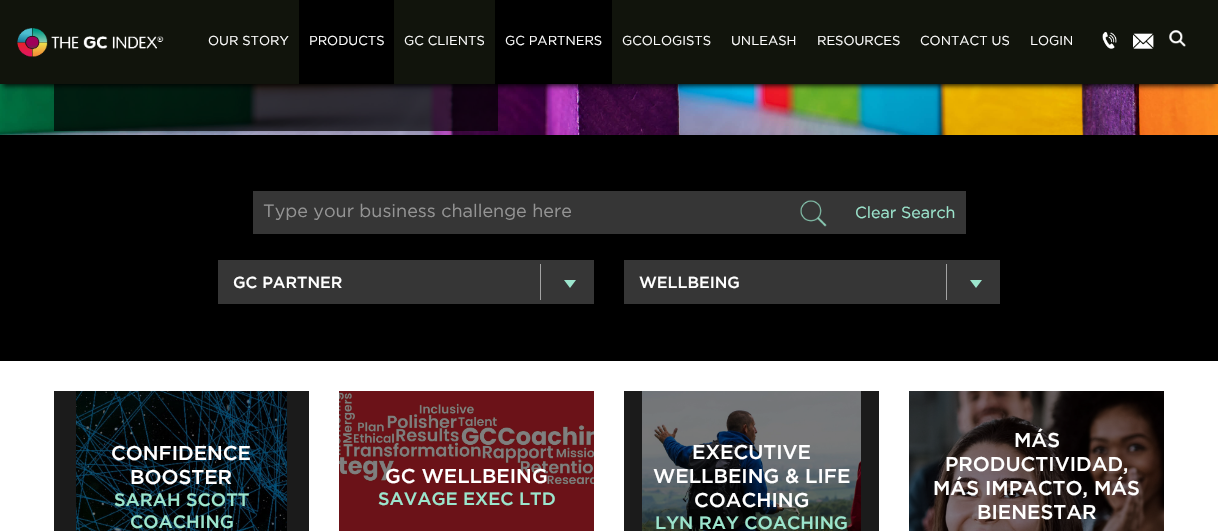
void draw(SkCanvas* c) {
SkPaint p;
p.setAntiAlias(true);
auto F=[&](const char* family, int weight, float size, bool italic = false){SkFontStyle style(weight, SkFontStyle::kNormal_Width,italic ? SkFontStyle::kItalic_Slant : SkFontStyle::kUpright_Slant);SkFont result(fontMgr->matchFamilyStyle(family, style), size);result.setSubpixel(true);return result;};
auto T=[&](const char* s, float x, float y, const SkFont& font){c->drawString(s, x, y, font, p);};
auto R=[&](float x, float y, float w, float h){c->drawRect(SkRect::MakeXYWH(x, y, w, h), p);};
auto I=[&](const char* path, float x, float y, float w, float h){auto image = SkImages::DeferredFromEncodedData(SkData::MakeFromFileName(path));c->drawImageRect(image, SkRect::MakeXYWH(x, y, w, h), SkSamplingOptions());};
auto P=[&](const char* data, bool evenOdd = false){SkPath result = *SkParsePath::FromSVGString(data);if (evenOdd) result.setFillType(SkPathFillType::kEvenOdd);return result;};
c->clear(0xffffffff);
I("5.png",0,84,1218,51);
p.setColor(0xb3000000);
R(54,84,444,47);
p.setColor(0xd1000000);
p.setMaskFilter(SkMaskFilter::MakeBlur(kNormal_SkBlurStyle, 2.5));
c->drawRect(SkRect::MakeXYWH(3,8,1212,78),p);
p.setMaskFilter(nullptr);
p.setColor(0xff11140c);
R(0,0,1218,84);
I("1.png",17,28,147,29);
auto f1 = F("Gotham",400,13);
p.setColor(0xffffffff);
T("OUR STORY",208,45,f1);
p.setColor(0xff000000);
R(299,0,95,84);
p.setColor(0xffffffff);
T("PRODUCTS",309,45,f1);
T("GC CLIENTS",404,45,f1);
p.setColor(0xff000000);
R(495,0,117,84);
p.setColor(0xffffffff);
T("GC PARTNERS",505,45,f1);
T("GCOLOGISTS",622,45,f1);
T("UNLEASH",731,45,f1);
T("RESOURCES",817,45,f1);
T("CONTACT US",920,45,f1);
T("LOGIN",1030,45,f1);
I("2.png",1102,32,15,17);
I("3.png",1133,33,21,16);
I("4.png",1169,30,17,17);
p.setColor(0xff000000);
R(0,135,1218,226);
p.setColor(0xff363636);
R(253,191,713,43);
auto f2 = F("Gotham",400,18);
p.setColor(0xff949494);
T("Type your business challenge here",263,217,f2);
I("6.png",800,200,27,27);
auto f3 = F("Gotham",400,16);
p.setColor(0xff9ce5cd);
T("Clear Search",855,218,f3);
p.setColor(0xff363636);
R(218,260,376,44);
auto f4 = F("Gotham",500,16);
p.setColor(0xffffffff);
T("GC PARTNER",233,288,f4);
p.setColor(0xffa3a3a3);
R(540,264,1,36);
p.setColor(0xff9ce5cd);
c->drawPath(P("M564 280h12l-6 8z"),p);
p.setColor(0xff363636);
R(624,260,376,44);
p.setColor(0xffffffff);
T("WELLBEING",639,288,f4);
p.setColor(0xffa3a3a3);
R(946,264,1,36);
p.setColor(0xff9ce5cd);
c->drawPath(P("M970 280h12l-6 8z"),p);
p.setColor(0xff1b1b1b);
R(54,391,255,140);
I("7.png",76,391,211,140);
auto f5 = F("Gotham",500,20);
p.setColor(0xffffffff);
T("CONFIDENCE",111,460,f5);
T("BOOSTER",130,484,f5);
auto f6 = F("Gotham",500,18);
p.setColor(0xff9ce5cd);
T("SARAH SCOTT",114,506,f6);
T("COACHING",130,528,f6);
I("8.png",339,391,255,140);
p.setColor(0xffffffff);
T("GC WELLBEING",385,483,f5);
p.setColor(0xff9ce5cd);
T("SAVAGE EXEC LTD",378,505,f6);
p.setColor(0xff1b1b1b);
R(624,391,255,140);
I("9.png",642,391,219,140);
p.setColor(0xffffffff);
T("EXECUTIVE",692,459,f5);
T("WELLBEING & LIFE",653,483,f5);
T("COACHING",694,507,f5);
p.setColor(0xff9ce5cd);
T("LYN RAY COACHING",655,529,f6);
I("10.png",909,391,255,140);
p.setColor(0xffffffff);
T("MÁS",1014,447,f5);
T("PRODUCTIVIDAD,",945,471,f5);
T("MÁS IMPACTO, MÁS",933,495,f5);
T("BIENESTAR",977,519,f5);
}
